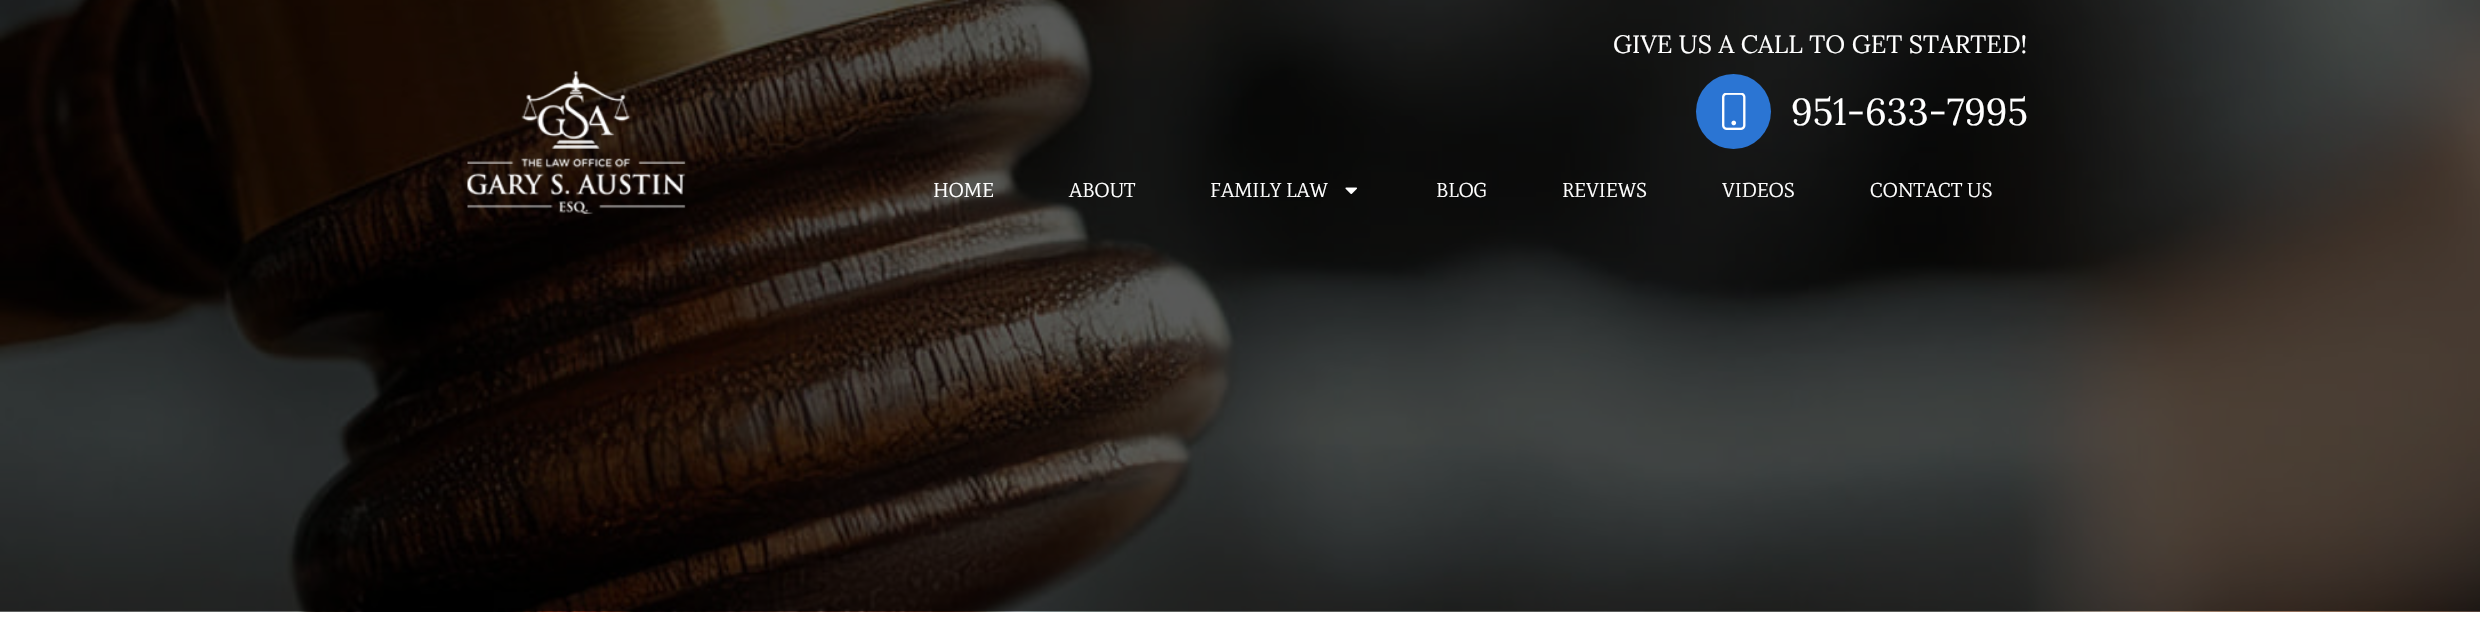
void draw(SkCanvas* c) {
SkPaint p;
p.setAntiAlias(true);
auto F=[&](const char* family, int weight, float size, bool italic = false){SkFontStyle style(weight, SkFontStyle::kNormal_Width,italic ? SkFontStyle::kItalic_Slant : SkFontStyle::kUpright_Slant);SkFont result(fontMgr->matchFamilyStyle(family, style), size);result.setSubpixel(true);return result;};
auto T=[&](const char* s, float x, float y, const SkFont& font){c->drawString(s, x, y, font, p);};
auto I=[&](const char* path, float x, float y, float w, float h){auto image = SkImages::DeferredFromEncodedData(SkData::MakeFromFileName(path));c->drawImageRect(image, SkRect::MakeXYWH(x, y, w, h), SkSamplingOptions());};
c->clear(0xffffffff);
I("1.png",0,0,2480,612);
I("2.png",467,71,219,143);
auto f1 = F("Lora",400,25);
p.setColor(0xffffffff);
T("GIVE US A CALL TO GET STARTED!",1613,53,f1);
p.setColor(0xff2b75d3);
c->drawCircle(1733.5,111.5,37.5,p);
I("3.png",1722,93,24,37);
auto f2 = F("Lora",400,37.5);
p.setColor(0xffffffff);
T("951-633-7995",1791,125,f2);
auto f3 = F("Mate SC",400,20);
T("HOME",933,197,f3);
T("ABOUT",1069,197,f3);
T("FAMILY LAW",1210,197,f3);
I("4.png",1345,187,12,7);
T("BLOG",1436,197,f3);
T("REVIEWS",1562,197,f3);
T("VIDEOS",1722,197,f3);
T("CONTACT US",1870,197,f3);
}
